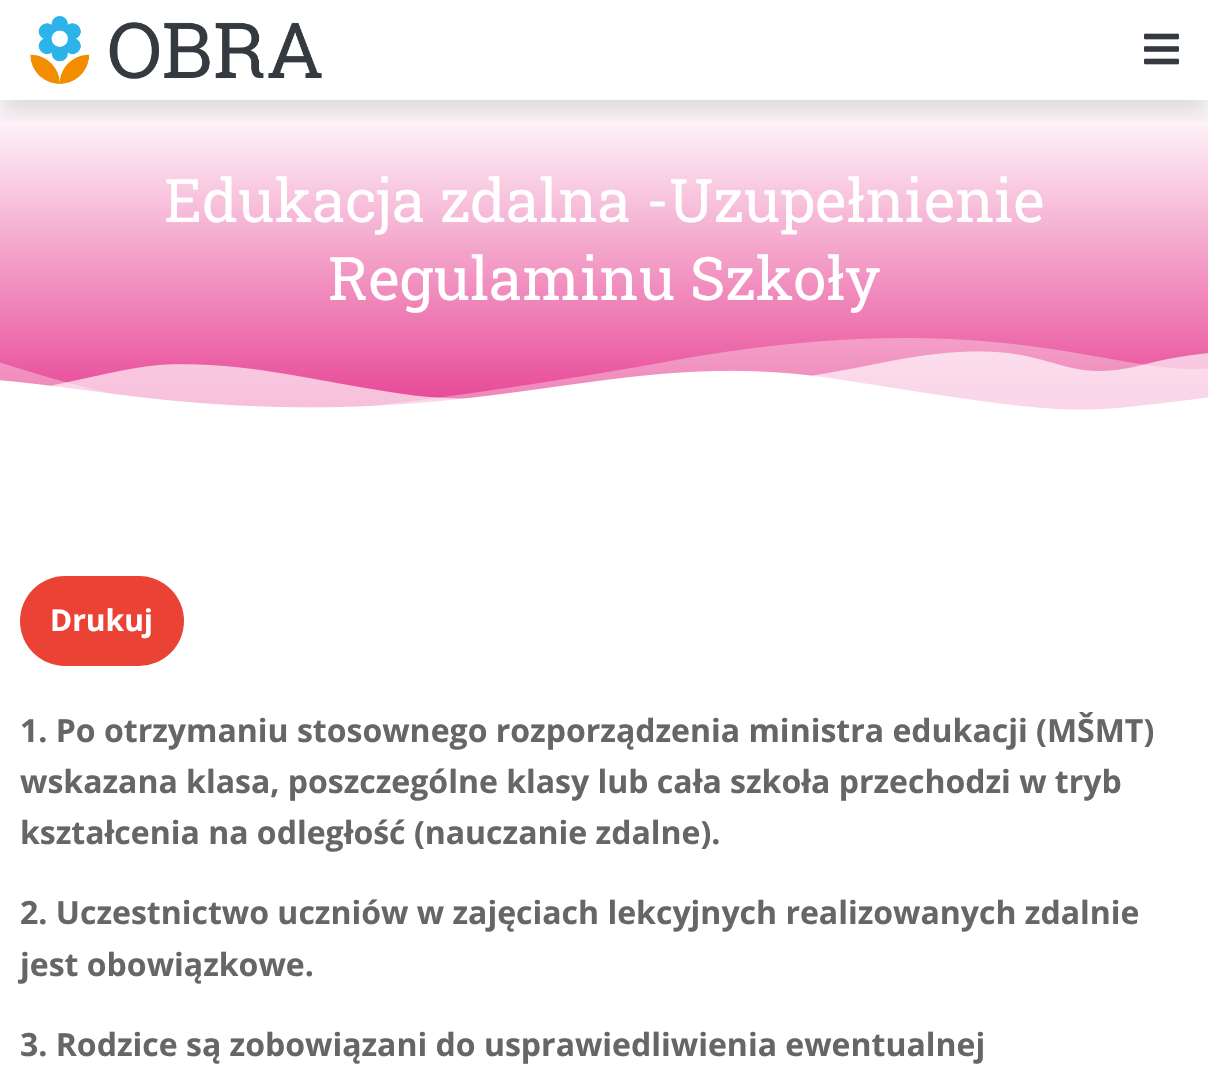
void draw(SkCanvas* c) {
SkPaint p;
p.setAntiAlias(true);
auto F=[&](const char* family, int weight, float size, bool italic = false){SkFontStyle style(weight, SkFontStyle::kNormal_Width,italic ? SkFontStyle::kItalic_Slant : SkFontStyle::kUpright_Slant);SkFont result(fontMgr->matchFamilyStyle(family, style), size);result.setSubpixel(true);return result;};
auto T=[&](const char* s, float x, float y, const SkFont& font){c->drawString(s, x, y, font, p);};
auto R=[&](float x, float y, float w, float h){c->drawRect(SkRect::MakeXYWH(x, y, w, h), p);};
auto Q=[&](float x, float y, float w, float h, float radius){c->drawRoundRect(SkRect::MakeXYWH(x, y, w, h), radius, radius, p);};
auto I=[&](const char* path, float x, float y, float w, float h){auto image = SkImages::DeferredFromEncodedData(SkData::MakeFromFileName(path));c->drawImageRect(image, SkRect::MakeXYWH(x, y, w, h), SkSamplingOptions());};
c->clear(0xffffffff);
{
const SkColor colors[] = {0xffffffff,0xffe74092};
const float stops[] = {0,1};
const SkPoint ends[] = {{604,100}, {604,416}};
p.setShader(SkGradientShader::MakeLinear(ends, colors, stops, 2, SkTileMode::kClamp));
p.setAlpha(255);
}
R(0,104,1208,306);
c->save();
c->clipRect(SkRect::MakeXYWH(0,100,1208,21));
p.setShader(nullptr);
p.setColor(0x26000000);
p.setMaskFilter(SkMaskFilter::MakeBlur(kNormal_SkBlurStyle, 10));
c->drawRect(SkRect::MakeXYWH(0,10,1208,100),p);
p.setMaskFilter(nullptr);
c->restore();
I("1.png",30,15,292,69);
I("2.png",1144,33,35,32);
auto f1 = F("Roboto Slab",400,60);
p.setColor(0xffffffff);
T("Edukacja zdalna -Uzupełnienie",164,222,f1);
T("Regulaminu Szkoły",328,300,f1);
I("3.png",0,338,1208,78);
p.setColor(0xffea4335);
Q(20,576,164,90,45);
auto f2 = F("Open Sans",700,30);
p.setColor(0xffffffff);
T("Drukuj",50,631,f2);
auto f3 = F("Open Sans",700,32);
p.setColor(0xff666666);
T("1. Po otrzymaniu stosownego rozporządzenia ministra edukacji (MŠMT)",20,742,f3);
T("wskazana klasa, poszczególne klasy lub cała szkoła przechodzi w tryb",20,793,f3);
T("kształcenia na odległość (nauczanie zdalne).",20,844,f3);
T("2. Uczestnictwo uczniów w zajęciach lekcyjnych realizowanych zdalnie",20,924,f3);
T("jest obowiązkowe.",20,976,f3);
T("3. Rodzice są zobowiązani do usprawiedliwienia ewentualnej",20,1056,f3);
}
